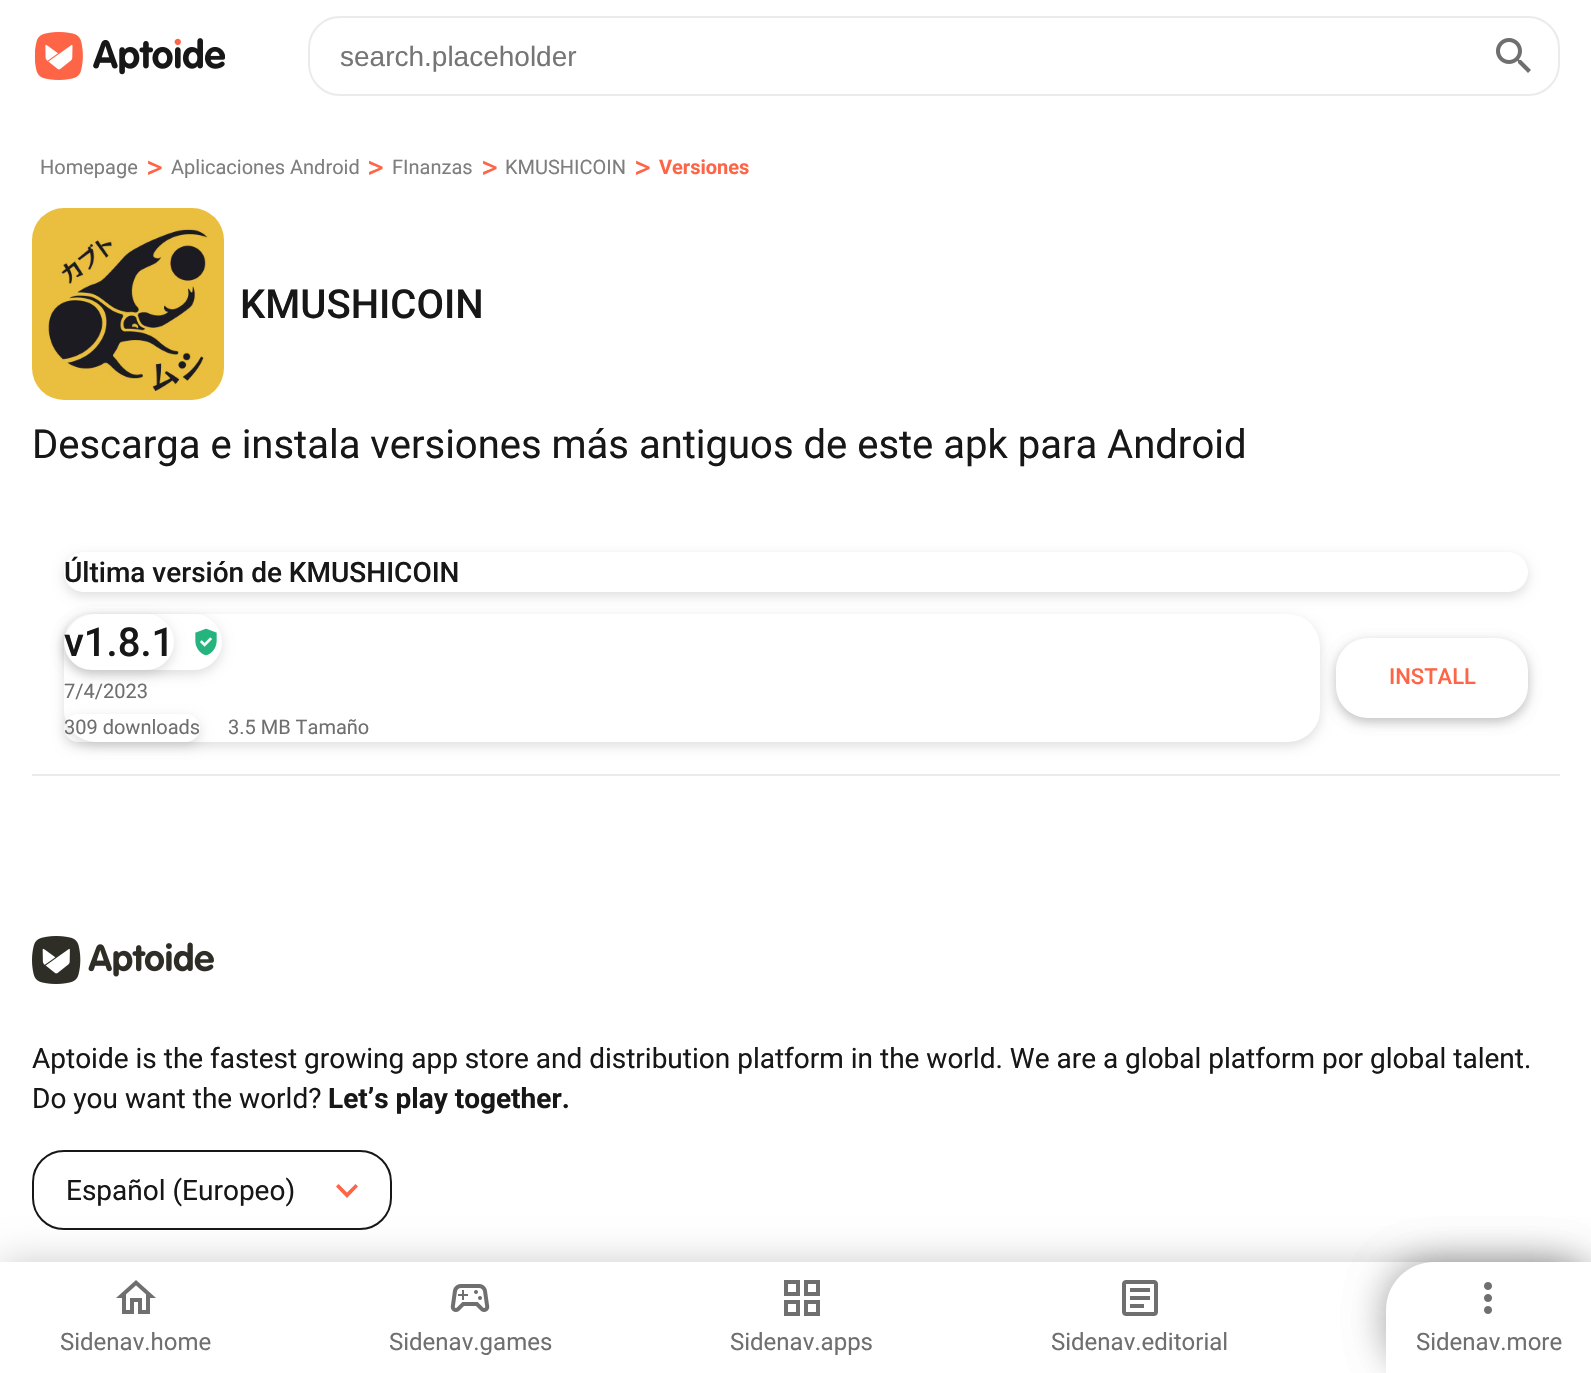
void draw(SkCanvas* c) {
SkPaint p;
p.setAntiAlias(true);
auto F=[&](const char* family, int weight, float size, bool italic = false){SkFontStyle style(weight, SkFontStyle::kNormal_Width,italic ? SkFontStyle::kItalic_Slant : SkFontStyle::kUpright_Slant);SkFont result(fontMgr->matchFamilyStyle(family, style), size);result.setSubpixel(true);return result;};
auto T=[&](const char* s, float x, float y, const SkFont& font){c->drawString(s, x, y, font, p);};
auto R=[&](float x, float y, float w, float h){c->drawRect(SkRect::MakeXYWH(x, y, w, h), p);};
auto I=[&](const char* path, float x, float y, float w, float h){auto image = SkImages::DeferredFromEncodedData(SkData::MakeFromFileName(path));c->drawImageRect(image, SkRect::MakeXYWH(x, y, w, h), SkSamplingOptions());};
auto P=[&](const char* data, bool evenOdd = false){SkPath result = *SkParsePath::FromSVGString(data);if (evenOdd) result.setFillType(SkPathFillType::kEvenOdd);return result;};
c->clear(0xffffffff);
I("1.png",35,32,190,48);
p.setStroke(true);
p.setStrokeWidth(2);
p.setColor(0xffebebeb);
c->drawRoundRect(SkRect::MakeXYWH(309,17,1250,78),31,31,p);
auto f1 = F("Liberation Sans",400,28);
p.setStroke(false);
p.setColor(0xff757575);
T("search.placeholder",340,66,f1);
I("2.png",1496,38,35,35);
auto f2 = F("Roboto",400,20);
p.setColor(0xff7e7e7e);
T("Homepage",40,174,f2);
auto f3 = F("Roboto",400,32);
p.setColor(0xfffe6446);
T(">",146,178,f3);
p.setColor(0xff7e7e7e);
T("Aplicaciones Android",171,174,f2);
p.setColor(0xfffe6446);
T(">",367,178,f3);
p.setColor(0xff7e7e7e);
T("FInanzas",392,174,f2);
p.setColor(0xfffe6446);
T(">",481,178,f3);
p.setColor(0xff7e7e7e);
T("KMUSHICOIN",505,174,f2);
p.setColor(0xfffe6446);
T(">",634,178,f3);
auto f4 = F("Roboto",700,20);
T("Versiones",659,174,f4);
I("3.png",32,208,192,192);
auto f5 = F("Roboto",500,40);
p.setColor(0xff171717);
T("KMUSHICOIN",240,318,f5);
auto f6 = F("Roboto",400,40);
T("Descarga e instala versiones más antiguos de este apk para Android",32,458,f6);
p.setColor(0xffebebeb);
R(32,774,1528,2);
c->save();
c->clipPath(P("M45 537h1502v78h-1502zm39 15h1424c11 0 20 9 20 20c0 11-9 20-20 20h-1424c-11 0-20-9-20-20c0-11 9-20 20-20z",true),true);
p.setColor(0x21000000);
p.setMaskFilter(SkMaskFilter::MakeBlur(kNormal_SkBlurStyle, 6));
c->drawRoundRect(SkRect::MakeXYWH(64,556,1464,40),20,20,p);
p.setMaskFilter(nullptr);
c->restore();
auto f7 = F("Roboto",500,28);
p.setColor(0xff171717);
T("Última versión de KMUSHICOIN",64,582,f7);
c->save();
c->clipPath(P("M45 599h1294v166h-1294zm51 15h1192c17.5 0 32 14.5 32 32v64c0 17.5-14.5 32-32 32h-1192c-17.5 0-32-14.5-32-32v-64c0-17.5 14.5-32 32-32z",true),true);
p.setColor(0x21000000);
p.setMaskFilter(SkMaskFilter::MakeBlur(kNormal_SkBlurStyle, 6));
c->drawRoundRect(SkRect::MakeXYWH(64,618,1256,128),32,32,p);
p.setMaskFilter(nullptr);
c->restore();
c->save();
c->clipPath(P("M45 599h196v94h-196zm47 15h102c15.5 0 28 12.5 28 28c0 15.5-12.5 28-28 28h-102c-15.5 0-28-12.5-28-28c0-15.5 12.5-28 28-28z",true),true);
p.setMaskFilter(SkMaskFilter::MakeBlur(kNormal_SkBlurStyle, 6));
c->drawRoundRect(SkRect::MakeXYWH(64,618,158,56),28,28,p);
p.setMaskFilter(nullptr);
c->restore();
c->save();
c->clipPath(P("M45 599h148v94h-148zm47 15h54c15.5 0 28 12.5 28 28c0 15.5-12.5 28-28 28h-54c-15.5 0-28-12.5-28-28c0-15.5 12.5-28 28-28z",true),true);
p.setMaskFilter(SkMaskFilter::MakeBlur(kNormal_SkBlurStyle, 6));
c->drawRoundRect(SkRect::MakeXYWH(64,618,110,56),28,28,p);
p.setMaskFilter(nullptr);
c->restore();
p.setColor(0xff171717);
T("v1.8.1",64,656,f5);
I("4.png",195,628,22,28);
p.setColor(0xff6f6f6f);
T("7/4/2023",64,698,f2);
c->save();
c->clipPath(P("M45 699h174v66h-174zm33 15h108c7.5 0 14 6.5 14 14c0 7.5-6.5 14-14 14h-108c-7.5 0-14-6.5-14-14c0-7.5 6.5-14 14-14z",true),true);
p.setColor(0x21000000);
p.setMaskFilter(SkMaskFilter::MakeBlur(kNormal_SkBlurStyle, 6));
c->drawRoundRect(SkRect::MakeXYWH(64,718,136,28),14,14,p);
p.setMaskFilter(nullptr);
c->restore();
p.setColor(0xff6f6f6f);
T("309 downloads",64,734,f2);
T("3.5 MB Tamaño",228,734,f2);
c->save();
c->clipPath(P("M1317 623h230v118h-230zm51 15h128c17.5 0 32 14.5 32 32v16c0 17.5-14.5 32-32 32h-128c-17.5 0-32-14.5-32-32v-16c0-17.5 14.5-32 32-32z",true),true);
p.setColor(0x21000000);
p.setMaskFilter(SkMaskFilter::MakeBlur(kNormal_SkBlurStyle, 6));
c->drawRoundRect(SkRect::MakeXYWH(1336,642,192,80),32,32,p);
p.setMaskFilter(nullptr);
p.setMaskFilter(SkMaskFilter::MakeBlur(kNormal_SkBlurStyle, 6));
c->drawRoundRect(SkRect::MakeXYWH(1336,642,192,80),32,32,p);
p.setMaskFilter(nullptr);
c->restore();
auto f8 = F("Roboto",500,22);
p.setColor(0xfffe6446);
T("INSTALL",1389,684,f8);
I("5.png",32,936,182,48);
auto f9 = F("Roboto",400,28);
p.setColor(0xff171717);
T("Aptoide is the fastest growing app store and distribution platform in the world. We are a global platform por global talent.",32,1068,f9);
T("Do you want the world?",32,1108,f9);
auto f10 = F("Roboto",700,28);
T("Let’s play together.",328,1108,f10);
p.setStroke(true);
c->drawRoundRect(SkRect::MakeXYWH(33,1151,358,78),31,31,p);
p.setStroke(false);
T("Español (Europeo)",66,1200,f9);
p.setColor(0xfffe6446);
c->drawPath(P("M355.5 1184l-8.5 8.5l-8.5-8.5l-2.5 2.5l11 11.5l11-11.5z"),p);
p.setColor(0x33000000);
p.setMaskFilter(SkMaskFilter::MakeBlur(kNormal_SkBlurStyle, 19));
c->drawRect(SkRect::MakeXYWH(0,1262,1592,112),p);
p.setMaskFilter(nullptr);
p.setColor(0xffffffff);
R(0,1262,1434,111);
I("6.png",116,1280,40,34);
auto f11 = F("Roboto",400,24);
p.setColor(0xff6f6f6f);
T("Sidenav.home",60,1350,f11);
I("7.png",450,1284,40,28);
T("Sidenav.games",389,1350,f11);
I("8.png",784,1280,36,36);
T("Sidenav.apps",730,1350,f11);
I("9.png",1122,1280,36,36);
T("Sidenav.editorial",1051,1350,f11);
p.setColor(0x33000000);
p.setMaskFilter(SkMaskFilter::MakeBlur(kNormal_SkBlurStyle, 19));
c->drawRoundRect(SkRect::MakeXYWH(1386,1262,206,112),48,48,p);
p.setMaskFilter(nullptr);
p.setMaskFilter(SkMaskFilter::MakeBlur(kNormal_SkBlurStyle, 19));
c->drawRoundRect(SkRect::MakeXYWH(1386,1262,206,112),48,48,p);
p.setMaskFilter(nullptr);
p.setColor(0xffffffff);
c->drawPath(P("M1434 1262h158v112h-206v-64c0-26.5 21.5-48 48-48z"),p);
I("10.png",1484,1282,8,32);
p.setColor(0xff6f6f6f);
T("Sidenav.more",1416,1350,f11);
}
